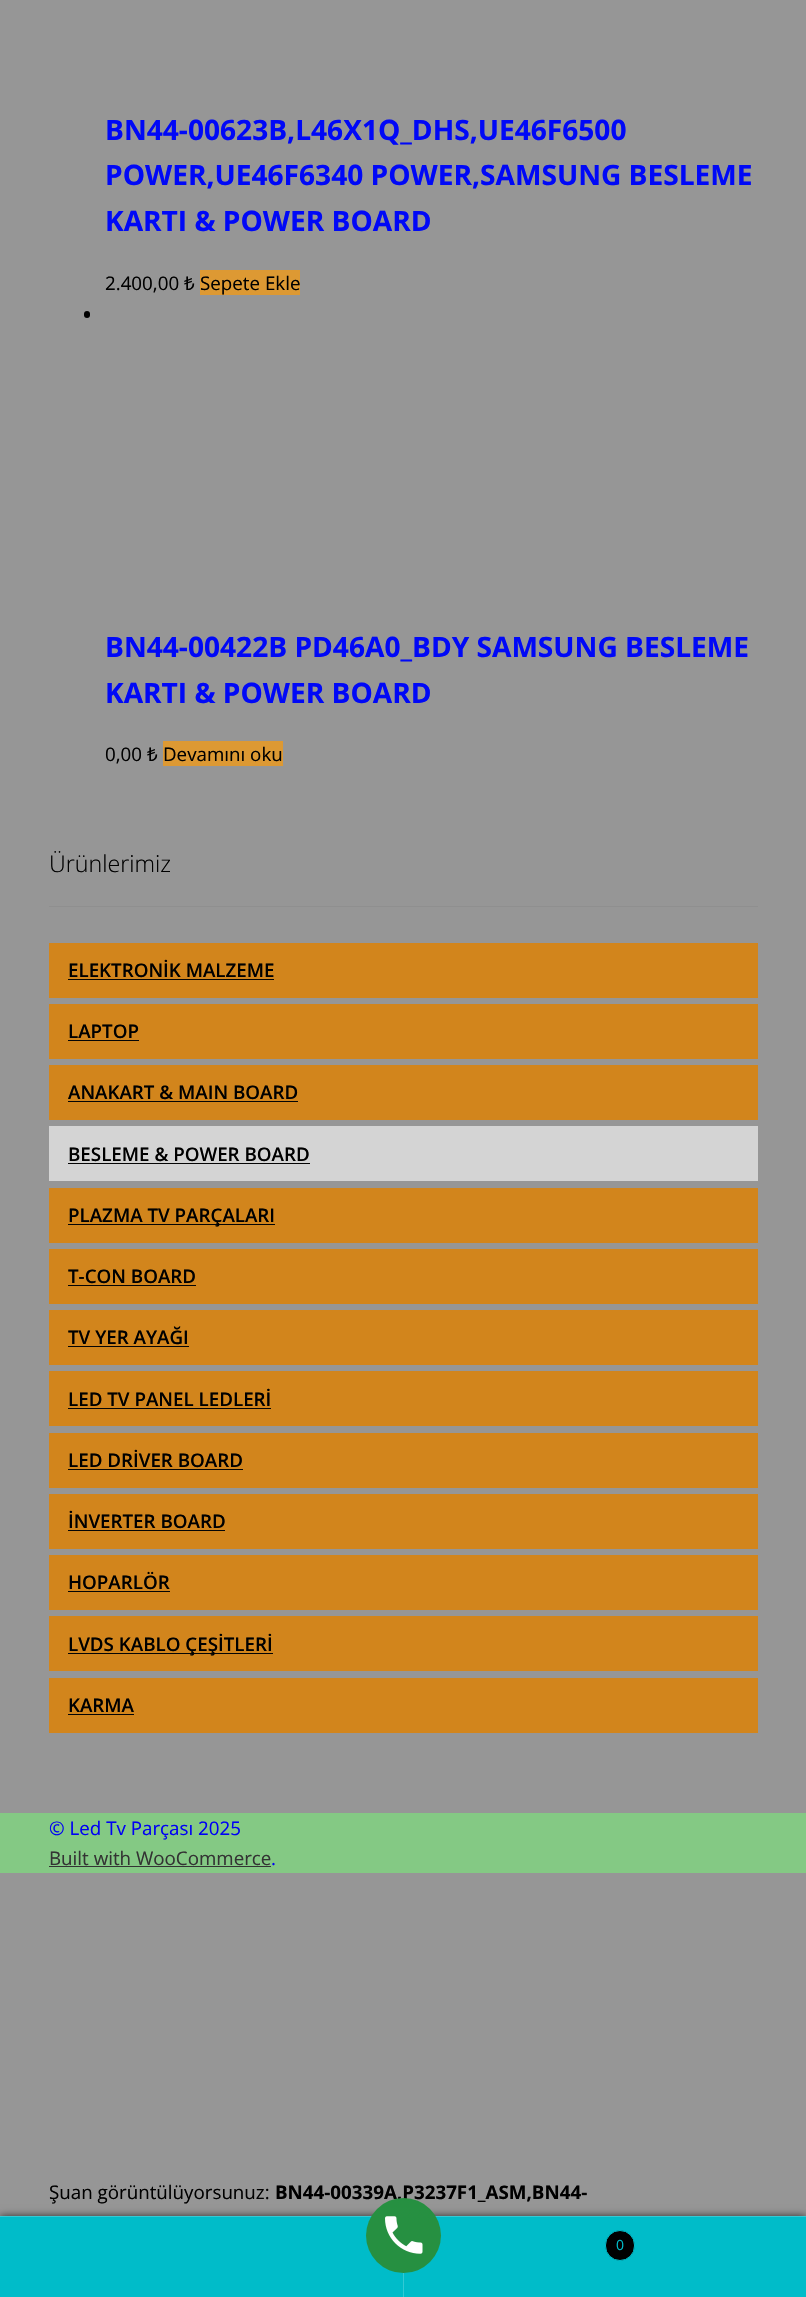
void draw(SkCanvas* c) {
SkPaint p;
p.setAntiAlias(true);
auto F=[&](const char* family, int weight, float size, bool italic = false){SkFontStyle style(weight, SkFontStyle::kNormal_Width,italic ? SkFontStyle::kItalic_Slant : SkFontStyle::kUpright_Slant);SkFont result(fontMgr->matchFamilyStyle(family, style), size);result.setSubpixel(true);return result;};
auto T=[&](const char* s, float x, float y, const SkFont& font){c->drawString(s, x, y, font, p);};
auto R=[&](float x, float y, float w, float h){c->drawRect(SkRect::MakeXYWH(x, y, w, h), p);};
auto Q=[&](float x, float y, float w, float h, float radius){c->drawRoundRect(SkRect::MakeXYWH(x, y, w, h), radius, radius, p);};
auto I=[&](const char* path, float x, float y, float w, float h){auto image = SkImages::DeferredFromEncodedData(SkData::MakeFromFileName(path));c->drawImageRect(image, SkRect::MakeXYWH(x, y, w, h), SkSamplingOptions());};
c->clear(0xff969696);
auto f1 = F("Open Sans",700,28.1);
p.setColor(0xff0008f7);
T("BN44-00623B,L46X1Q_DHS,UE46F6500",105,140,f1);
T("POWER,UE46F6340 POWER,SAMSUNG BESLEME",105,185,f1);
T("KARTI & POWER BOARD",105,231,f1);
auto f2 = F("Open Sans",400,18.75);
p.setColor(0xff000000);
T("2.400,00",105,290,f2);
auto f3 = F("Noto Sans",400,18.75);
T("₺",184,290,f3);
p.setColor(0xffdd9933);
R(200,270,100,25);
p.setColor(0xff000000);
T("Sepete Ekle",200,290,f2);
Q(84,311,6,7,3);
p.setColor(0xff0008f7);
T("BN44-00422B PD46A0_BDY SAMSUNG BESLEME",105,657,f1);
T("KARTI & POWER BOARD",105,703,f1);
p.setColor(0xff000000);
T("0,00",105,761,f2);
T("₺",147,761,f3);
p.setColor(0xffdd9933);
R(163,741,120,25);
p.setColor(0xff000000);
T("Devamını oku",163,761,f2);
p.setColor(0xff8f8f8f);
R(49,906,709,1);
auto f4 = F("Open Sans",300,23.25);
p.setColor(0xff000000);
T("Ürünlerimiz",49,872,f4);
p.setColor(0xffd2851c);
R(49,943,709,55);
auto f5 = F("Open Sans",600,18.75);
p.setColor(0xff000000);
T("ELEKTRONİK MALZEME",68,977,f5);
p.setColor(0xff050505);
R(68,979,206,1);
p.setColor(0xffd2851c);
R(49,1004,709,55);
p.setColor(0xff000000);
T("LAPTOP",68,1038,f5);
p.setColor(0xff050505);
R(68,1040,71,1);
p.setColor(0xffd2851c);
R(49,1065,709,55);
p.setColor(0xff000000);
T("ANAKART & MAIN BOARD",68,1099,f5);
p.setColor(0xff050505);
R(68,1101,230,1);
p.setColor(0xffd4d4d4);
R(49,1126,709,55);
p.setColor(0xff000000);
T("BESLEME & POWER BOARD",68,1161,f5);
p.setColor(0xff050505);
R(68,1163,242,1);
p.setColor(0xffd2851c);
R(49,1188,709,55);
p.setColor(0xff050505);
R(68,1224,207,1);
p.setColor(0xff000000);
T("PLAZMA TV PARÇALARI",68,1222,f5);
p.setColor(0xffd2851c);
R(49,1249,709,55);
p.setColor(0xff000000);
T("T-CON BOARD",68,1283,f5);
p.setColor(0xff050505);
R(68,1285,128,1);
p.setColor(0xffd2851c);
R(49,1310,709,55);
p.setColor(0xff000000);
T("TV YER AYAĞI",68,1344,f5);
p.setColor(0xff050505);
R(68,1346,121,1);
p.setColor(0xffd2851c);
R(49,1371,709,55);
p.setColor(0xff000000);
T("LED TV PANEL LEDLERİ",68,1406,f5);
p.setColor(0xff050505);
R(68,1408,203,1);
p.setColor(0xffd2851c);
R(49,1433,709,55);
p.setColor(0xff000000);
T("LED DRİVER BOARD",68,1467,f5);
p.setColor(0xff050505);
R(68,1469,175,1);
p.setColor(0xffd2851c);
R(49,1494,709,55);
p.setColor(0xff000000);
T("İNVERTER BOARD",68,1528,f5);
p.setColor(0xff050505);
R(68,1530,157,1);
p.setColor(0xffd2851c);
R(49,1555,709,55);
p.setColor(0xff000000);
T("HOPARLÖR",68,1589,f5);
p.setColor(0xff050505);
R(68,1591,102,1);
p.setColor(0xffd2851c);
R(49,1616,709,55);
p.setColor(0xff050505);
R(68,1653,205,1);
p.setColor(0xff000000);
T("LVDS KABLO ÇEŞİTLERİ",68,1651,f5);
p.setColor(0xffd2851c);
R(49,1678,709,55);
p.setColor(0xff000000);
T("KARMA",68,1712,f5);
p.setColor(0xff050505);
R(68,1714,66,1);
p.setColor(0xff84c984);
R(0,1813,806,60);
p.setColor(0xff0000f4);
T("© Led Tv Parçası 2025",49,1835,f2);
p.setColor(0xff333333);
T("Built with WooCommerce",49,1865,f2);
R(49,1866,222,1);
p.setColor(0xff0000f4);
T(".",271,1865,f2);
p.setColor(0xb3000000);
p.setMaskFilter(SkMaskFilter::MakeBlur(kNormal_SkBlurStyle, 4));
c->drawRect(SkRect::MakeXYWH(0,2216,806,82),p);
p.setMaskFilter(nullptr);
p.setColor(0xff00bcc9);
R(0,2217,806,1);
p.setColor(0xff33c9d4);
R(0,2216,806,1);
p.setColor(0xff00bcc9);
R(0,2218,403,79);
p.setColor(0xff33c9d4);
R(403,2273,1,24);
p.setColor(0xff00bcc9);
R(404,2218,402,79);
p.setColor(0xff000000);
c->drawRoundRect(SkRect::MakeXYWH(605.5,2230.5,29,30),14.5,14.5,p);
p.setStroke(true);
p.setStrokeWidth(1);
p.setColor(0xff00bcc9);
c->drawRoundRect(SkRect::MakeXYWH(605.5,2230.5,29,30),14.5,14.5,p);
auto f6 = F("Open Sans",400,14);
p.setStroke(false);
T("0",616,2250,f6);
p.setColor(0xff000000);
T("Şuan görüntülüyorsunuz:",49,2199,f2);
auto f7 = F("Open Sans",700,18.75);
T("BN44-00339A,P3237F1_ASM,BN44-",275,2199,f7);
p.setColor(0xff269041);
c->drawCircle(403.5,2235.5,37.5,p);
I("1.png",385,2216,38,38);
}
